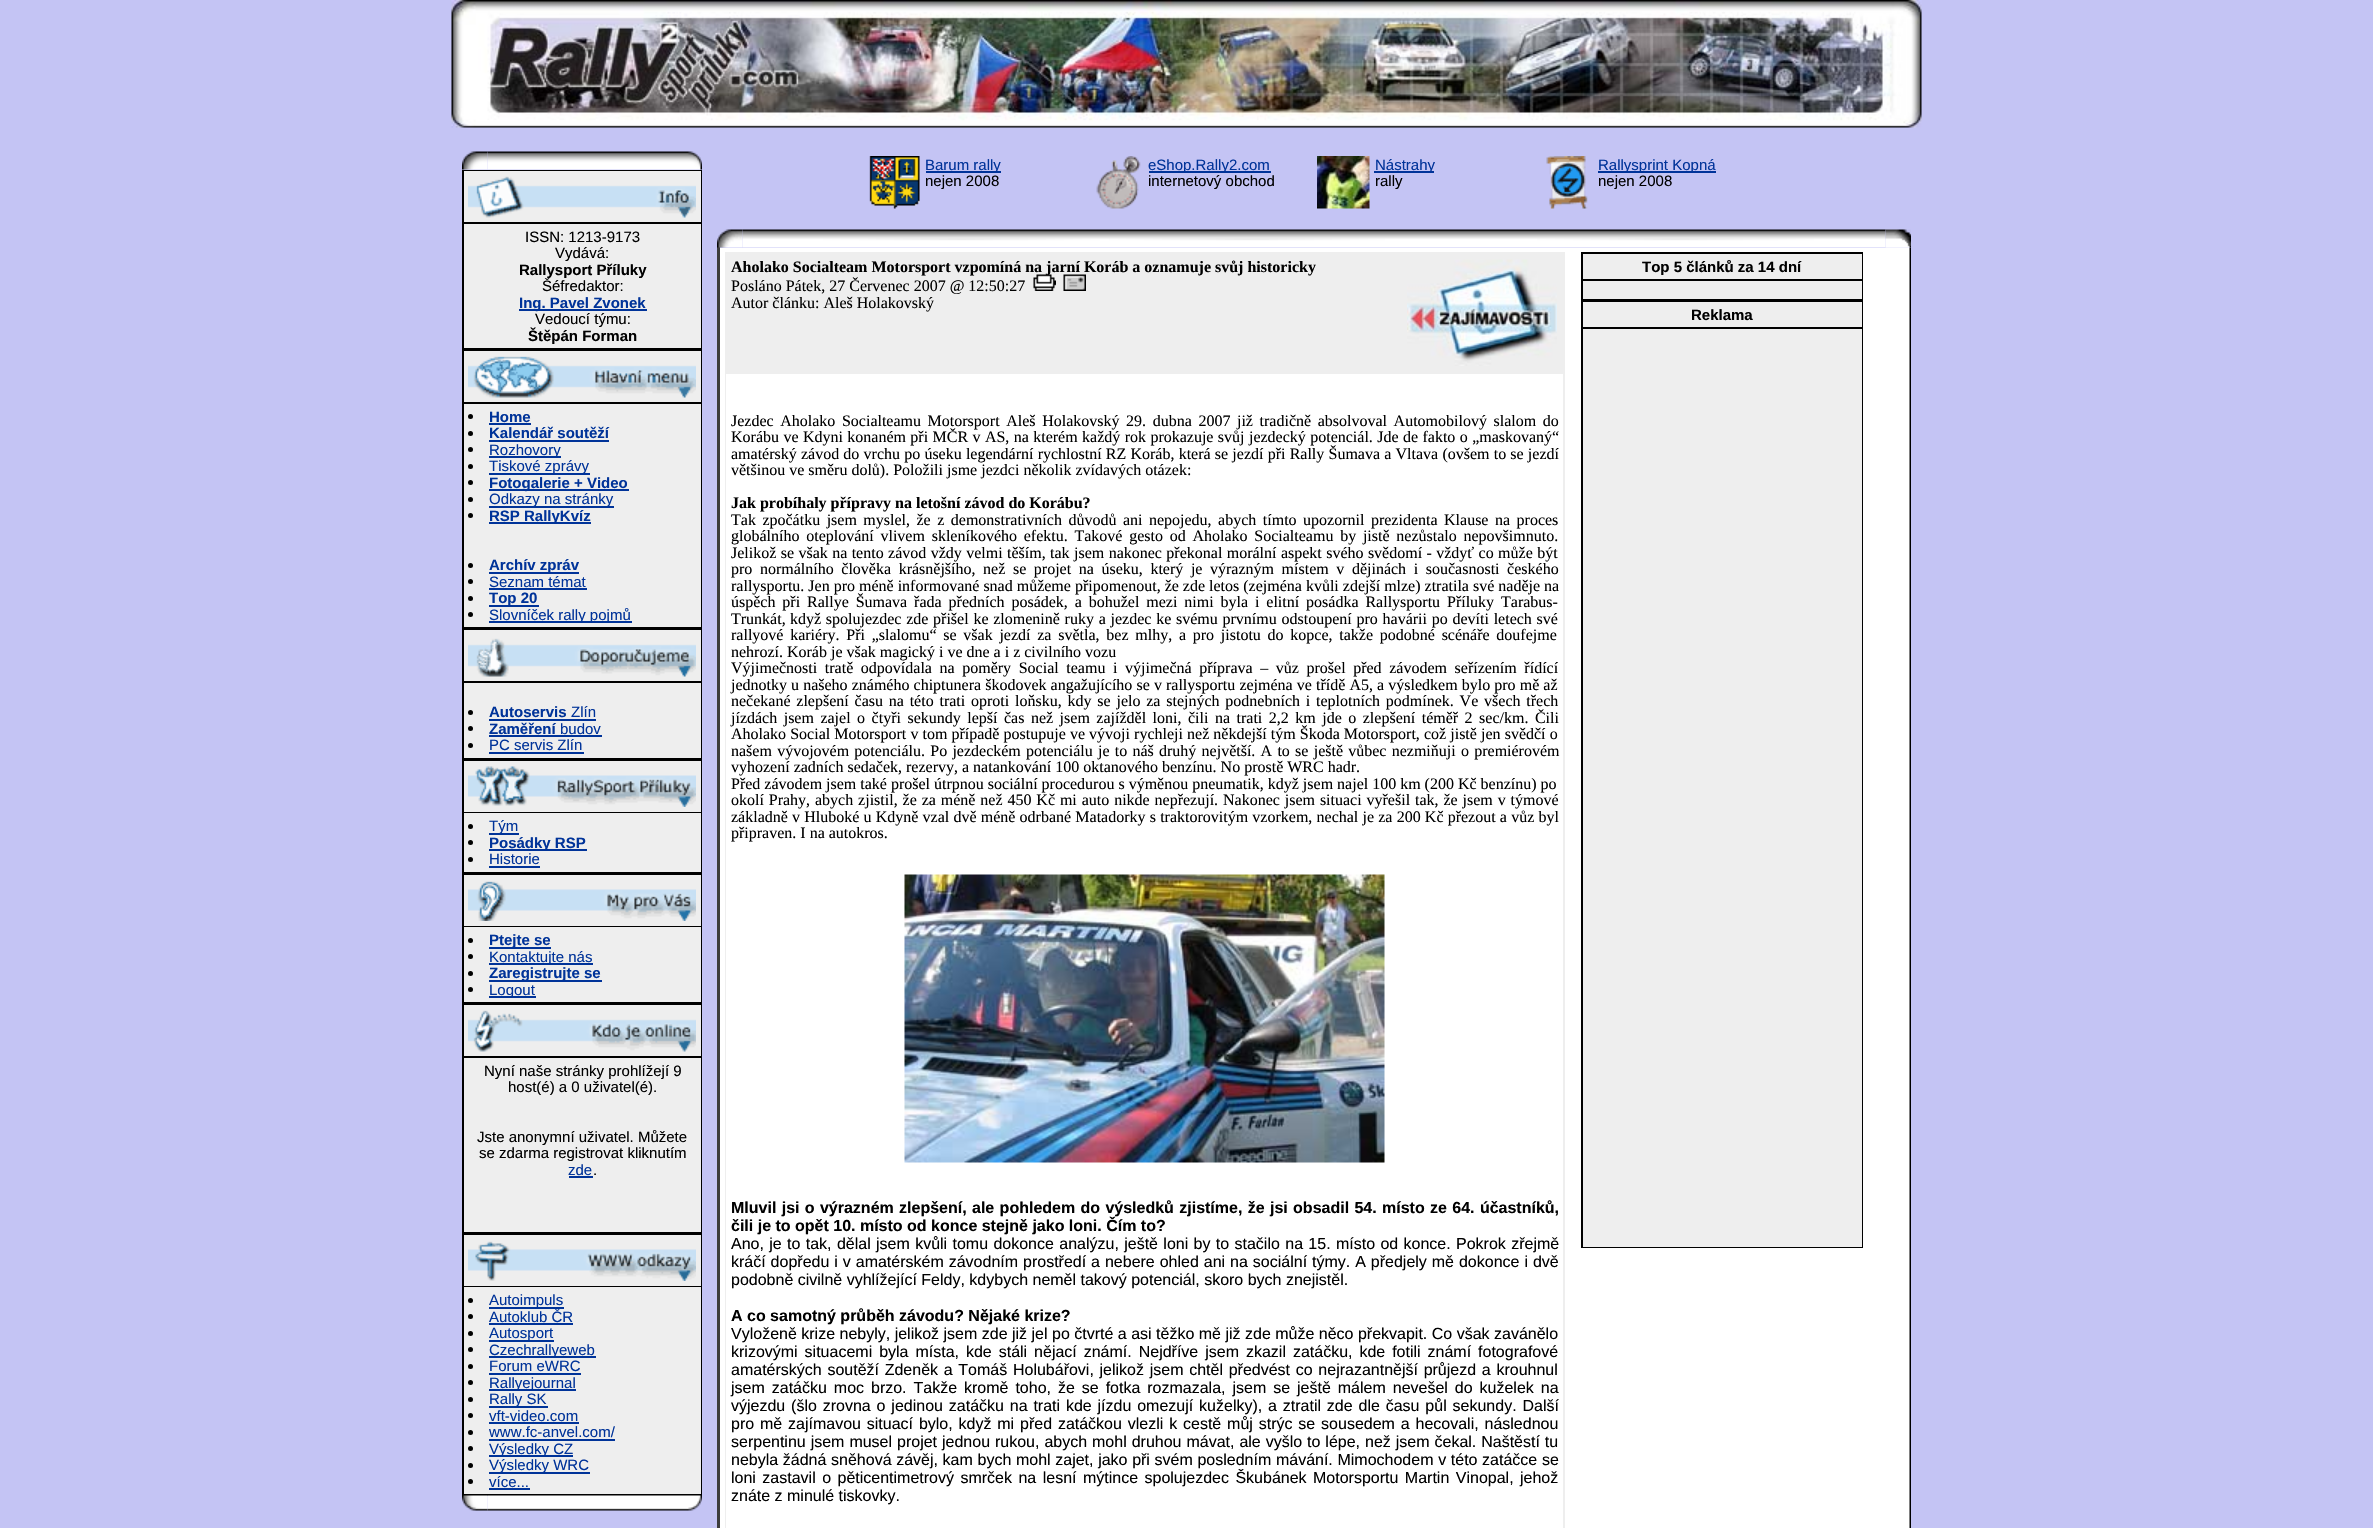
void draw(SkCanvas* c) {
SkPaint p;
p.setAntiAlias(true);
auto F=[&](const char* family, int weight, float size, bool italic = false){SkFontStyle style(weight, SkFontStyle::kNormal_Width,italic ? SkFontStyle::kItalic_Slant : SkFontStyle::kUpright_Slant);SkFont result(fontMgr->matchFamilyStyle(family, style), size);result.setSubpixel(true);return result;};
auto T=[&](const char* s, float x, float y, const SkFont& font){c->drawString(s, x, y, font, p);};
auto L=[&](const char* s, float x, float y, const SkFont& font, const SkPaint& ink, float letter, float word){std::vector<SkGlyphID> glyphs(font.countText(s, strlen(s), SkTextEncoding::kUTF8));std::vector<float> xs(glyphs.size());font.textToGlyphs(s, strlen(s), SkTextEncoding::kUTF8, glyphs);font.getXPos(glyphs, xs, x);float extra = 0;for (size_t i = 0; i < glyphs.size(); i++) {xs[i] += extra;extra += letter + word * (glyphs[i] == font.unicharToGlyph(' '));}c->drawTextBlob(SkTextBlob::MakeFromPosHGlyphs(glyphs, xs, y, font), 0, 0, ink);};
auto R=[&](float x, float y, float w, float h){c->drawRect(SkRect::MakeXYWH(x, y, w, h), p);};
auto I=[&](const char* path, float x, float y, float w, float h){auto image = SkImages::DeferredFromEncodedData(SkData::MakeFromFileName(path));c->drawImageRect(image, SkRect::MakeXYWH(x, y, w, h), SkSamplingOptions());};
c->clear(0xffc4c4f4);
I("1.png",451,0,1471,128);
I("2.png",462,151,26,19);
I("3.png",487,151,173,19);
I("4.png",660,151,42,19);
p.setColor(0xff000000);
R(462,170,240,1326);
p.setColor(0xffeeeeee);
R(464,171,237,51);
I("5.png",468,176,228,42);
R(464,224,237,124);
auto f1 = F("Liberation Sans",400,15);
p.setColor(0xff000000);
T("ISSN: 1213-9173",525,242,f1);
T("Vydává:",555,258,f1);
auto f2 = F("Liberation Sans",700,15);
T("Rallysport Příluky",519,275,f2);
T("Šéfredaktor:",542,291,f1);
p.setColor(0xff003399);
R(519,309,128,2);
T("Ing. Pavel Zvonek",519,308,f2);
p.setColor(0xff000000);
T("Vedoucí týmu:",535,324,f1);
T("Štěpán Forman",528,341,f2);
p.setColor(0xffeeeeee);
R(464,351,237,51);
I("6.png",468,356,228,42);
R(464,404,237,223);
p.setColor(0xff000000);
c->drawCircle(470.5,416.5,2.5,p);
p.setColor(0xff003399);
T("Home",489,422,f2);
R(489,423,42,2);
p.setColor(0xff000000);
c->drawCircle(470.5,433.5,2.5,p);
p.setColor(0xff003399);
T("Kalendář soutěží",489,438,f2);
R(489,440,120,2);
p.setColor(0xff000000);
c->drawCircle(470.5,449.5,2.5,p);
p.setColor(0xff003399);
R(489,456,72,2);
T("Rozhovory",489,455,f1);
p.setColor(0xff000000);
c->drawCircle(470.5,466.5,2.5,p);
p.setColor(0xff003399);
R(489,473,101,2);
T("Tiskové zprávy",489,471,f1);
p.setColor(0xff000000);
c->drawCircle(470.5,482.5,2.5,p);
p.setColor(0xff003399);
R(489,489,140,2);
T("Fotogalerie + Video",489,488,f2);
p.setColor(0xff000000);
c->drawCircle(470.5,499.5,2.5,p);
p.setColor(0xff003399);
R(489,506,125,2);
T("Odkazy na stránky",489,504,f1);
p.setColor(0xff000000);
c->drawCircle(470.5,515.5,2.5,p);
p.setColor(0xff003399);
R(489,522,102,2);
T("RSP RallyKvíz",489,521,f2);
p.setColor(0xff000000);
c->drawCircle(470.5,565.5,2.5,p);
p.setColor(0xff003399);
R(489,572,90,2);
T("Archív zpráv",489,570,f2);
p.setColor(0xff000000);
c->drawCircle(470.5,581.5,2.5,p);
p.setColor(0xff003399);
T("Seznam témat",489,587,f1);
R(489,588,98,2);
p.setColor(0xff000000);
c->drawCircle(470.5,598.5,2.5,p);
p.setColor(0xff003399);
R(489,605,50,2);
T("Top 20",489,603,f2);
p.setColor(0xff000000);
c->drawCircle(470.5,614.5,2.5,p);
p.setColor(0xff003399);
R(489,621,143,2);
T("Slovníček rally pojmů",489,620,f1);
p.setColor(0xffeeeeee);
R(464,630,237,51);
I("7.png",468,638,228,39);
R(464,683,237,75);
p.setColor(0xff000000);
c->drawCircle(470.5,712.5,2.5,p);
p.setColor(0xff003399);
T("Autoservis",489,717,f2);
R(489,719,107,2);
T("Zlín",571,717,f1);
p.setColor(0xff000000);
c->drawCircle(470.5,728.5,2.5,p);
p.setColor(0xff003399);
T("Zaměření",489,734,f2);
T("budov",560,734,f1);
R(489,735,113,2);
p.setColor(0xff000000);
c->drawCircle(470.5,745.5,2.5,p);
p.setColor(0xff003399);
T("PC servis Zlín",489,750,f1);
R(489,752,95,2);
p.setColor(0xffeeeeee);
R(464,761,237,51);
I("8.png",468,766,228,41);
R(464,813,237,59);
p.setColor(0xff000000);
c->drawCircle(470.5,826.5,2.5,p);
p.setColor(0xff003399);
R(489,833,30,2);
T("Tým",489,831,f1);
p.setColor(0xff000000);
c->drawCircle(470.5,842.5,2.5,p);
p.setColor(0xff003399);
R(489,849,98,2);
T("Posádky RSP",489,848,f2);
p.setColor(0xff000000);
c->drawCircle(470.5,859.5,2.5,p);
p.setColor(0xff003399);
T("Historie",489,864,f1);
R(489,866,51,2);
p.setColor(0xffeeeeee);
R(464,875,237,51);
I("9.png",468,881,228,40);
R(464,927,237,75);
p.setColor(0xff000000);
c->drawCircle(470.5,940.5,2.5,p);
p.setColor(0xff003399);
R(489,947,62,2);
T("Ptejte se",489,945,f2);
p.setColor(0xff000000);
c->drawCircle(470.5,956.5,2.5,p);
p.setColor(0xff003399);
R(489,963,104,2);
T("Kontaktujte nás",489,962,f1);
p.setColor(0xff000000);
c->drawCircle(470.5,973.5,2.5,p);
p.setColor(0xff003399);
R(489,980,113,2);
T("Zaregistrujte se",489,978,f2);
p.setColor(0xff000000);
c->drawCircle(470.5,989.5,2.5,p);
p.setColor(0xff003399);
R(489,996,47,2);
T("Logout",489,995,f1);
p.setColor(0xffeeeeee);
R(464,1005,237,51);
I("10.png",468,1010,228,42);
R(464,1058,237,174);
p.setColor(0xff000000);
T("Nyní naše stránky prohlížejí 9",484,1076,f1);
T("host(é) a 0 uživatel(é).",508,1092,f1);
T("Jste anonymní uživatel. Můžete",477,1142,f1);
T("se zdarma registrovat kliknutím",479,1158,f1);
p.setColor(0xff003399);
T("zde",568,1175,f1);
R(569,1176,24,2);
p.setColor(0xff000000);
T(".",593,1175,f1);
p.setColor(0xffeeeeee);
R(464,1235,237,51);
I("11.png",468,1241,228,40);
R(464,1287,237,207);
p.setColor(0xff000000);
c->drawCircle(470.5,1300.5,2.5,p);
p.setColor(0xff003399);
R(489,1307,75,2);
T("Autoimpuls",489,1305,f1);
p.setColor(0xff000000);
c->drawCircle(470.5,1316.5,2.5,p);
p.setColor(0xff003399);
T("Autoklub ČR",489,1322,f1);
R(489,1323,84,2);
p.setColor(0xff000000);
c->drawCircle(470.5,1333.5,2.5,p);
p.setColor(0xff003399);
R(489,1340,65,2);
T("Autosport",489,1338,f1);
p.setColor(0xff000000);
c->drawCircle(470.5,1349.5,2.5,p);
p.setColor(0xff003399);
R(489,1356,107,2);
T("Czechrallyeweb",489,1355,f1);
p.setColor(0xff000000);
c->drawCircle(470.5,1366.5,2.5,p);
p.setColor(0xff003399);
T("Forum eWRC",489,1371,f1);
R(489,1373,92,2);
p.setColor(0xff000000);
c->drawCircle(470.5,1382.5,2.5,p);
p.setColor(0xff003399);
R(489,1389,87,2);
T("Rallyejournal",489,1388,f1);
p.setColor(0xff000000);
c->drawCircle(470.5,1399.5,2.5,p);
p.setColor(0xff003399);
R(489,1406,59,2);
T("Rally SK",489,1404,f1);
p.setColor(0xff000000);
c->drawCircle(470.5,1415.5,2.5,p);
p.setColor(0xff003399);
T("vft-video.com",489,1421,f1);
R(489,1422,90,2);
p.setColor(0xff000000);
c->drawCircle(470.5,1432.5,2.5,p);
p.setColor(0xff003399);
T("www.fc-anvel.com/",489,1437,f1);
R(489,1439,126,2);
p.setColor(0xff000000);
c->drawCircle(470.5,1448.5,2.5,p);
p.setColor(0xff003399);
R(489,1455,84,2);
T("Výsledky CZ",489,1454,f1);
p.setColor(0xff000000);
c->drawCircle(470.5,1465.5,2.5,p);
p.setColor(0xff003399);
R(489,1472,101,2);
T("Výsledky WRC",489,1470,f1);
p.setColor(0xff000000);
c->drawCircle(470.5,1481.5,2.5,p);
p.setColor(0xff003399);
T("více...",489,1487,f1);
R(489,1488,41,2);
I("12.png",462,1495,26,16);
I("13.png",487,1495,173,16);
I("14.png",660,1495,42,16);
I("15.png",869,156,51,53);
R(926,171,75,2);
T("Barum rally",925,170,f1);
p.setColor(0xff000000);
T("nejen 2008",925,186,f1);
I("16.png",1096,156,45,53);
p.setColor(0xff003399);
R(1149,171,122,2);
T("eShop.Rally2.com",1148,170,f1);
p.setColor(0xff000000);
T("internetový obchod",1148,186,f1);
I("17.png",1317,156,53,53);
p.setColor(0xff003399);
R(1374,171,60,2);
T("Nástrahy",1375,170,f1);
p.setColor(0xff000000);
T("rally",1375,186,f1);
I("18.png",1546,156,42,53);
p.setColor(0xff003399);
R(1598,171,118,2);
T("Rallysprint Kopná",1598,170,f1);
p.setColor(0xff000000);
T("nejen 2008",1598,186,f1);
p.setColor(0xff3c3c3c);
R(717,247,3,1281);
I("19.png",717,229,26,19);
p.setColor(0xffffffff);
R(720,248,1166,1280);
I("26.png",1885,247,26,1281);
I("20.png",742,229,1144,19);
I("21.png",1885,229,26,19);
p.setColor(0xffeeeeee);
R(725,252,840,1276);
auto f3 = F("Liberation Serif",700,16);
p.setColor(0xff000000);
T("Aholako Socialteam Motorsport vzpomíná na jarní Koráb a oznamuje svůj historicky",731,272,f3);
auto f4 = F("Liberation Serif",400,16);
T("Posláno Pátek, 27 Červenec 2007 @ 12:50:27",731,291,f4);
I("22.png",1033,274,23,17);
I("23.png",1063,274,23,17);
T("Autor článku: Aleš Holakovský",731,308,f4);
I("24.png",1407,259,150,107);
p.setColor(0xffffffff);
R(726,374,837,1154);
p.setColor(0xff000000);
L("Jezdec Aholako Socialteamu Motorsport Aleš Holakovský 29. dubna 2007 již tradičně absolvoval Automobilový slalom do",731,426,f4,p,0,2.6);
L("Korábu ve Kdyni konaném při MČR v AS, na kterém každý rok prokazuje svůj jezdecký potenciál. Jde de fakto o „maskovaný“",731,442,f4,p,0,.4);
L("amatérský závod do vrchu po úseku legendární rychlostní RZ Koráb, která se jezdí při Rally Šumava a Vltava (ovšem to se jezdí",731,459,f4,p,0,.2);
T("většinou ve směru dolů). Položili jsme jezdci několik zvídavých otázek:",731,475,f4);
T("Jak probíhaly přípravy na letošní závod do Korábu?",731,508,f3);
L("Tak zpočátku jsem myslel, že z demonstrativních důvodů ani nepojedu, abych tímto upozornil prezidenta Klause na proces",731,525,f4,p,0,2.5);
L("globálního oteplování vlivem skleníkového efektu. Takové gesto od Aholako Socialteamu by jistě nezůstalo nepovšimnuto.",731,541,f4,p,0,2.75);
L("Jelikož se však na tento závod vždy velmi těším, tak jsem nakonec překonal morální aspekt svého svědomí - vždyť co může být",731,558,f4,p,0,.4);
L("pro normálního člověka krásnějšího, než se projet na úseku, který je výrazným místem v dějinách i současnosti českého",731,574,f4,p,0,3.6);
T("rallysportu. Jen pro méně informované snad můžeme připomenout, že zde letos (zejména kvůli zdejší mlze) ztratila své naděje na",731,591,f4);
L("úspěch při Rallye Šumava řada předních posádek, a bohužel mezi nimi byla i elitní posádka Rallysportu Příluky Tarabus-",731,607,f4,p,0,2.9);
T("Trunkát,",731,624,f4);
L("když spolujezdec zde přišel ke zlomenině ruky a jezdec ke svému prvnímu odstoupení pro havárii po devíti letech své",790,624,f4,p,0,.75);
L("rallyové kariéry. Při „slalomu“ se však jezdí za světla, bez mlhy, a pro jistotu do kopce, takže podobné scénáře doufejme",731,640,f4,p,0,2.75);
T("nehrozí. Koráb je však magický i ve dne a i z civilního vozu ",731,657,f4);
L("Výjimečnosti tratě odpovídala na poměry Social teamu i výjimečná příprava – vůz prošel před závodem seřízením řídící",731,673,f4,p,0,3.6);
L("jednotky u našeho známého chiptunera škodovek angažujícího se v rallysportu zejména ve třídě A5, a výsledkem bylo pro mě až",731,690,f4,p,0,.1);
L("nečekané zlepšení času na této trati oproti loňsku, kdy se jelo za stejných podnebních i teplotních podmínek. Ve všech třech",731,706,f4,p,0,1.8);
L("jízdách jsem zajel o čtyři sekundy lepší čas než jsem zajížděl loni, čili na trati 2,2 km jde o zlepšení téměř 2 sec/km. Čili",731,723,f4,p,0,2.5);
L("Aholako Social Motorsport v tom případě postupuje ve vývoji rychleji než někdejší tým Škoda Motorsport, což jistě jen svědčí o",731,739,f4,p,0,.1);
L("našem vývojovém potenciálu. Po jezdeckém potenciálu je to náš druhý největší. A to se ještě vůbec nezmiňuji o premiérovém",731,756,f4,p,0,1.25);
T("vyhození zadních sedaček, rezervy, a natankování 100 oktanového benzínu. No prostě WRC hadr.",731,772,f4);
T("Před závodem jsem také prošel útrpnou sociální procedurou s výměnou pneumatik, když jsem najel 100 km (200 Kč benzínu) po",731,789,f4);
L("okolí Prahy, abych zjistil, že za méně než 450 Kč mi auto nikde nepřezují. Nakonec jsem situaci vyřešil tak, že jsem v týmové",731,805,f4,p,0,.9);
L("základně v Hluboké u Kdyně vzal dvě méně odrbané Matadorky s traktorovitým vzorkem, nechal je za 200 Kč přezout a vůz byl",731,822,f4,p,0,.2);
T("připraven. I na autokros.",731,838,f4);
I("25.png",904,874,481,289);
auto f5 = F("Liberation Sans",700,16);
L("Mluvil jsi o výrazném zlepšení, ale pohledem do výsledků zjistíme, že jsi obsadil 54. místo ze 64. účastníků,",731,1213,f5,p,0,.9);
T("čili je to opět 10. místo od konce stejně jako loni. Čím to?",731,1231,f5);
auto f6 = F("Liberation Sans",400,16);
L("Ano, je to tak, dělal jsem kvůli tomu dokonce analýzu, ještě loni by to stačilo na 15. místo od konce. Pokrok zřejmě",731,1249,f6,p,0,.9);
L("kráčí dopředu i v amatérském závodním prostředí a nebere ohled ani na sociální týmy. A předjely mě dokonce i dvě",731,1267,f6,p,0,.5);
T("podobně civilně vyhlížející Feldy, kdybych neměl takový potenciál, skoro bych znejistěl.",731,1285,f6);
T("A co samotný průběh závodu? Nějaké krize?",731,1321,f5);
T("Vyloženě krize nebyly, jelikož jsem zde již jel po čtvrté a asi těžko mě již zde může něco překvapit. Co však zavánělo",731,1339,f6);
L("krizovými situacemi byla místa, kde stáli nějací známí. Nejdříve jsem zkazil zatáčku, kde fotili známí fotografové",731,1357,f6,p,0,2.5);
L("amatérských soutěží Zdeněk a Tomáš Holubářovi, jelikož jsem chtěl předvést co nejrazantnější průjezd a krouhnul",731,1375,f6,p,0,1.25);
L("jsem zatáčku moc brzo. Takže kromě toho, že se fotka rozmazala, jsem se ještě málem nevešel do kuželek na",731,1393,f6,p,0,2.5);
L("výjezdu (šlo zrovna o jedinou zatáčku na trati kde jízdu omezují kuželky), a ztratil zde dle času půl sekundy. Další",731,1411,f6,p,0,1.4);
L("pro mě zajímavou situací bylo, když mi před zatáčkou vlezli k cestě můj strýc se sousedem a hecovali, následnou",731,1429,f6,p,0,1.4);
L("serpentinu jsem musel projet jednou rukou, abych mohl druhou mávat, ale vyšlo to lépe, než jsem čekal. Naštěstí tu",731,1447,f6,p,0,.5);
L("nebyla žádná sněhová závěj, kam bych mohl zajet, jako při svém posledním mávání. Mimochodem v této zatáčce se",731,1465,f6,p,0,.2);
L("loni zastavil o pěticentimetrový smrček na lesní mýtince spolujezdec Škubánek Motorsportu Martin Vinopal, jehož",731,1483,f6,p,0,2);
T("znáte z minulé tiskovky.",731,1501,f6);
R(1581,252,282,996);
p.setColor(0xffeeeeee);
R(1583,254,279,25);
p.setColor(0xff000000);
T("Top 5 článků za 14 dní",1642,272,f2);
p.setColor(0xffeeeeee);
R(1583,281,279,18);
R(1583,302,279,25);
p.setColor(0xff000000);
T("Reklama",1691,320,f2);
p.setColor(0xffeeeeee);
R(1583,329,279,918);
}
